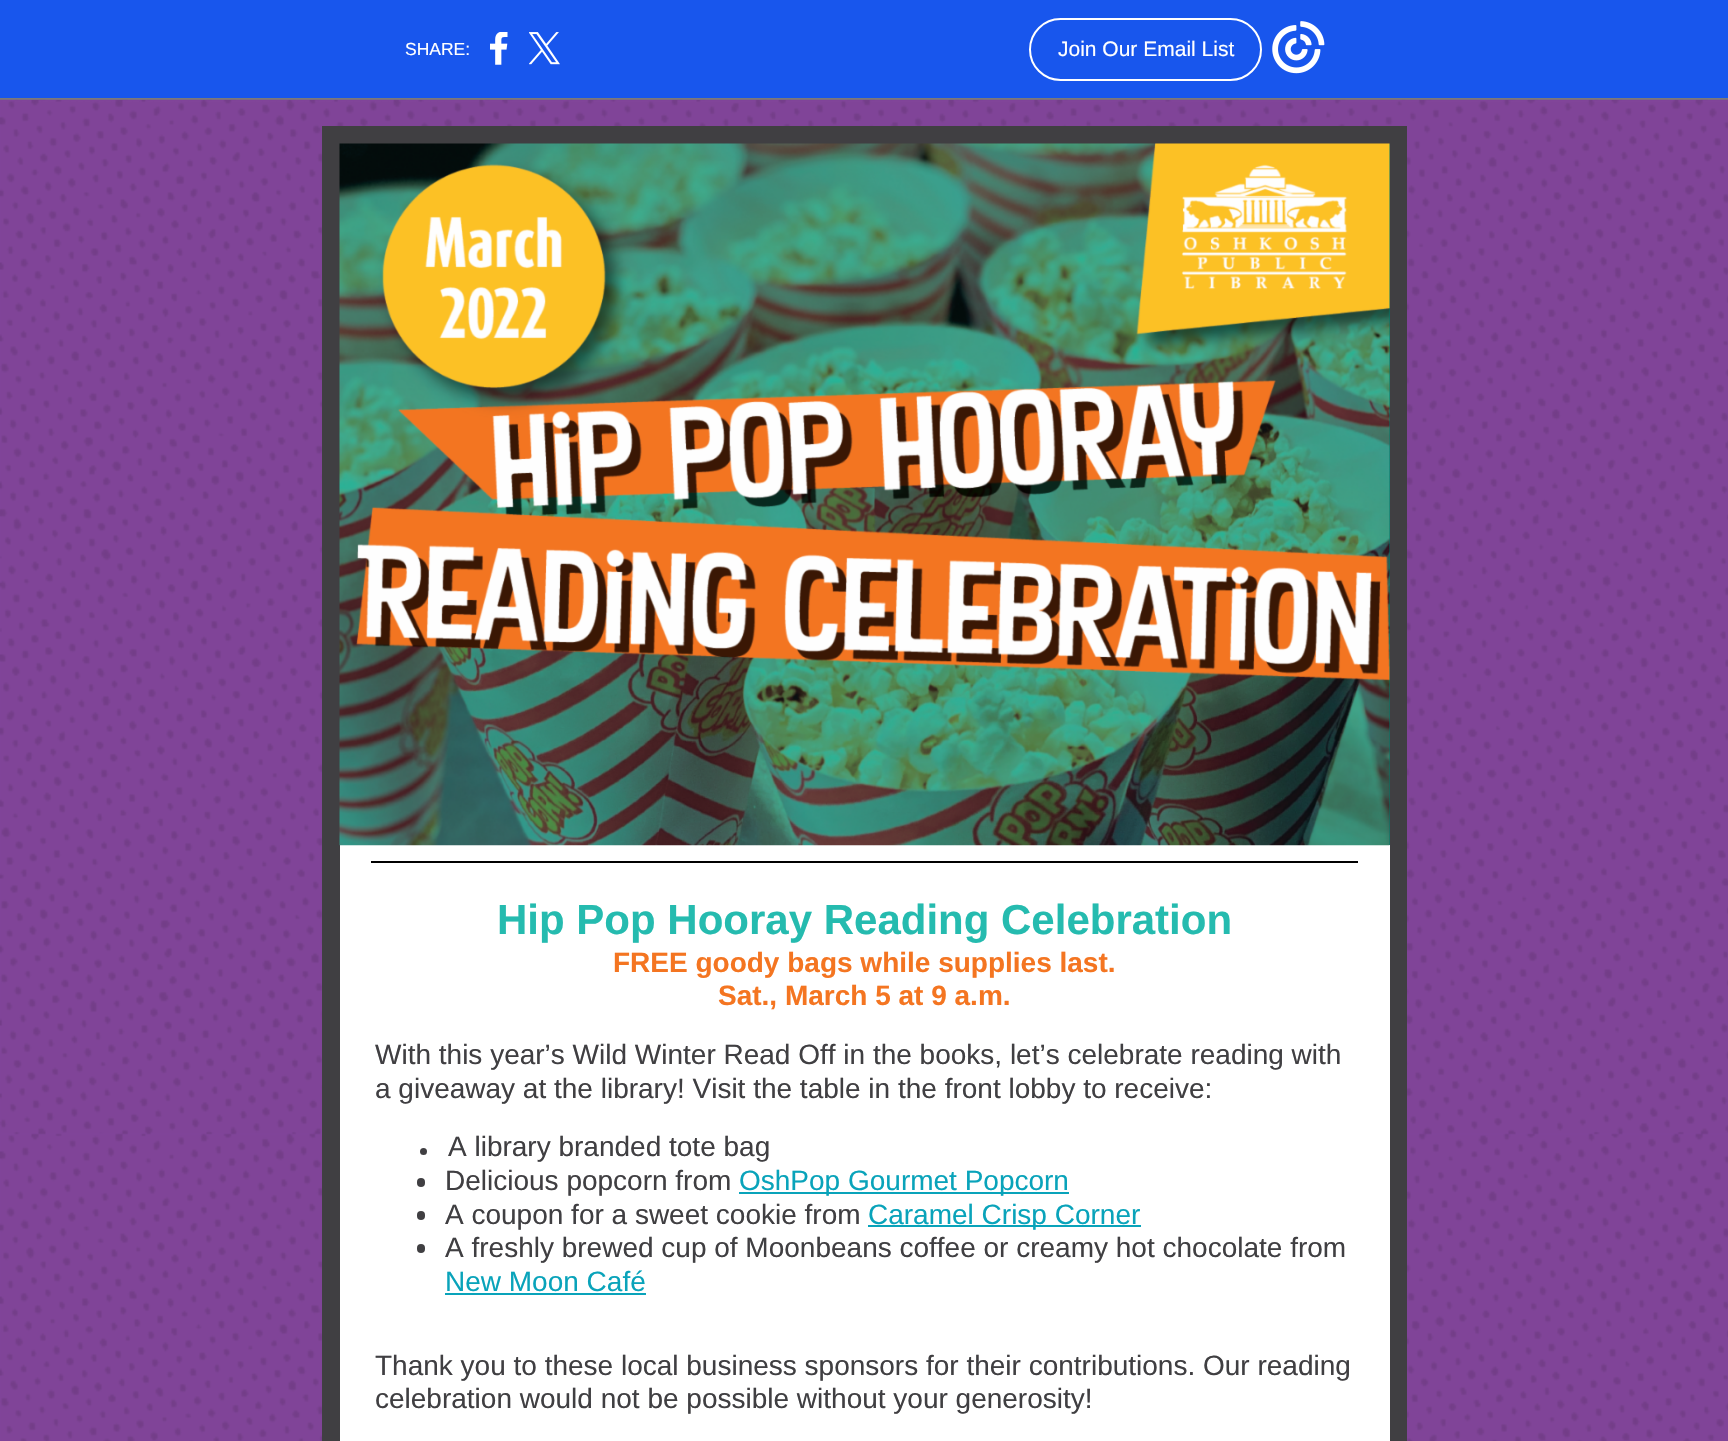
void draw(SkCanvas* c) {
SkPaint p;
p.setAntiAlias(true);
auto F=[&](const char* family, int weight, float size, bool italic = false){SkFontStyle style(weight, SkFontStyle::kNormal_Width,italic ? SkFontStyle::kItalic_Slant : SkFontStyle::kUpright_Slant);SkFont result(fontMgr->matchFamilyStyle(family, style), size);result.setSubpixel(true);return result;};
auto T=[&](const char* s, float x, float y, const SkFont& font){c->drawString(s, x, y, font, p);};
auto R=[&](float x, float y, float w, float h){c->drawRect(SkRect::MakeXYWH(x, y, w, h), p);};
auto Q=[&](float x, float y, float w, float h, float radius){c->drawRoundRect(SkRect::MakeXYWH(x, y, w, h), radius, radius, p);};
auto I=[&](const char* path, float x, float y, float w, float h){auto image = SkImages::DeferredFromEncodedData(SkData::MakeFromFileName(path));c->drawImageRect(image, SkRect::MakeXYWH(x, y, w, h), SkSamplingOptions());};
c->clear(0xff1856ed);
p.setColor(0xff7a7a7a);
R(0,98,1728,2);
auto f1 = F("Liberation Sans",400,17.5);
p.setColor(0xffffffff);
T("SHARE:",405,55,f1);
I("1.png",490,32,18,33);
I("2.png",529,32,31,33);
p.setStroke(true);
p.setStrokeWidth(2);
c->drawRoundRect(SkRect::MakeXYWH(1030,19,231,61),30.5,30.5,p);
auto f2 = F("Liberation Sans",400,21);
p.setStroke(false);
T("Join Our Email List",1058,56,f2);
I("3.png",1272,21,53,53);
I("4.png",0,99,1728,1342);
p.setColor(0xff403f42);
R(322,126,1085,1315);
p.setColor(0xffffffff);
R(340,845,1050,596);
p.setColor(0xff027368);
R(1389,144,1,701);
I("5.png",339,143,1051,703);
p.setColor(0xff000000);
R(371,861,987,2);
auto f3 = F("Liberation Sans",700,42);
p.setColor(0xff25bbaf);
T("Hip Pop Hooray Reading Celebration",497,934,f3);
auto f4 = F("Liberation Sans",700,28);
p.setColor(0xfff47521);
T("FREE goody bags while supplies last.",613,972,f4);
T("Sat., March 5 at 9 a.m.",718,1005,f4);
auto f5 = F("Liberation Sans",400,28);
p.setColor(0xff403f42);
T("With this year’s Wild Winter Read Off in the books, let’s celebrate reading with",375,1064,f5);
T("a giveaway at the library! Visit the table in the front lobby to receive:",375,1098,f5);
c->drawCircle(423.5,1151.5,3.5,p);
T("A library branded tote bag",448,1156,f5);
Q(417,1178,8,9,4);
T("Delicious popcorn from",445,1190,f5);
p.setColor(0xff09a3ba);
R(739,1192,330,2);
T("OshPop Gourmet Popcorn",739,1190,f5);
p.setColor(0xff403f42);
Q(417,1211,8,9,4);
T("A coupon for a sweet cookie from",445,1224,f5);
p.setColor(0xff09a3ba);
R(868,1225,273,2);
T("Caramel Crisp Corner",868,1224,f5);
p.setColor(0xff403f42);
Q(417,1244,8,9,4);
T("A freshly brewed cup of Moonbeans coffee or creamy hot chocolate from",445,1257,f5);
p.setColor(0xff09a3ba);
T("New Moon Café",445,1291,f5);
R(445,1293,201,2);
p.setColor(0xff403f42);
T("Thank you to these local business sponsors for their contributions. Our reading",375,1375,f5);
T("celebration would not be possible without your generosity!",375,1408,f5);
}
